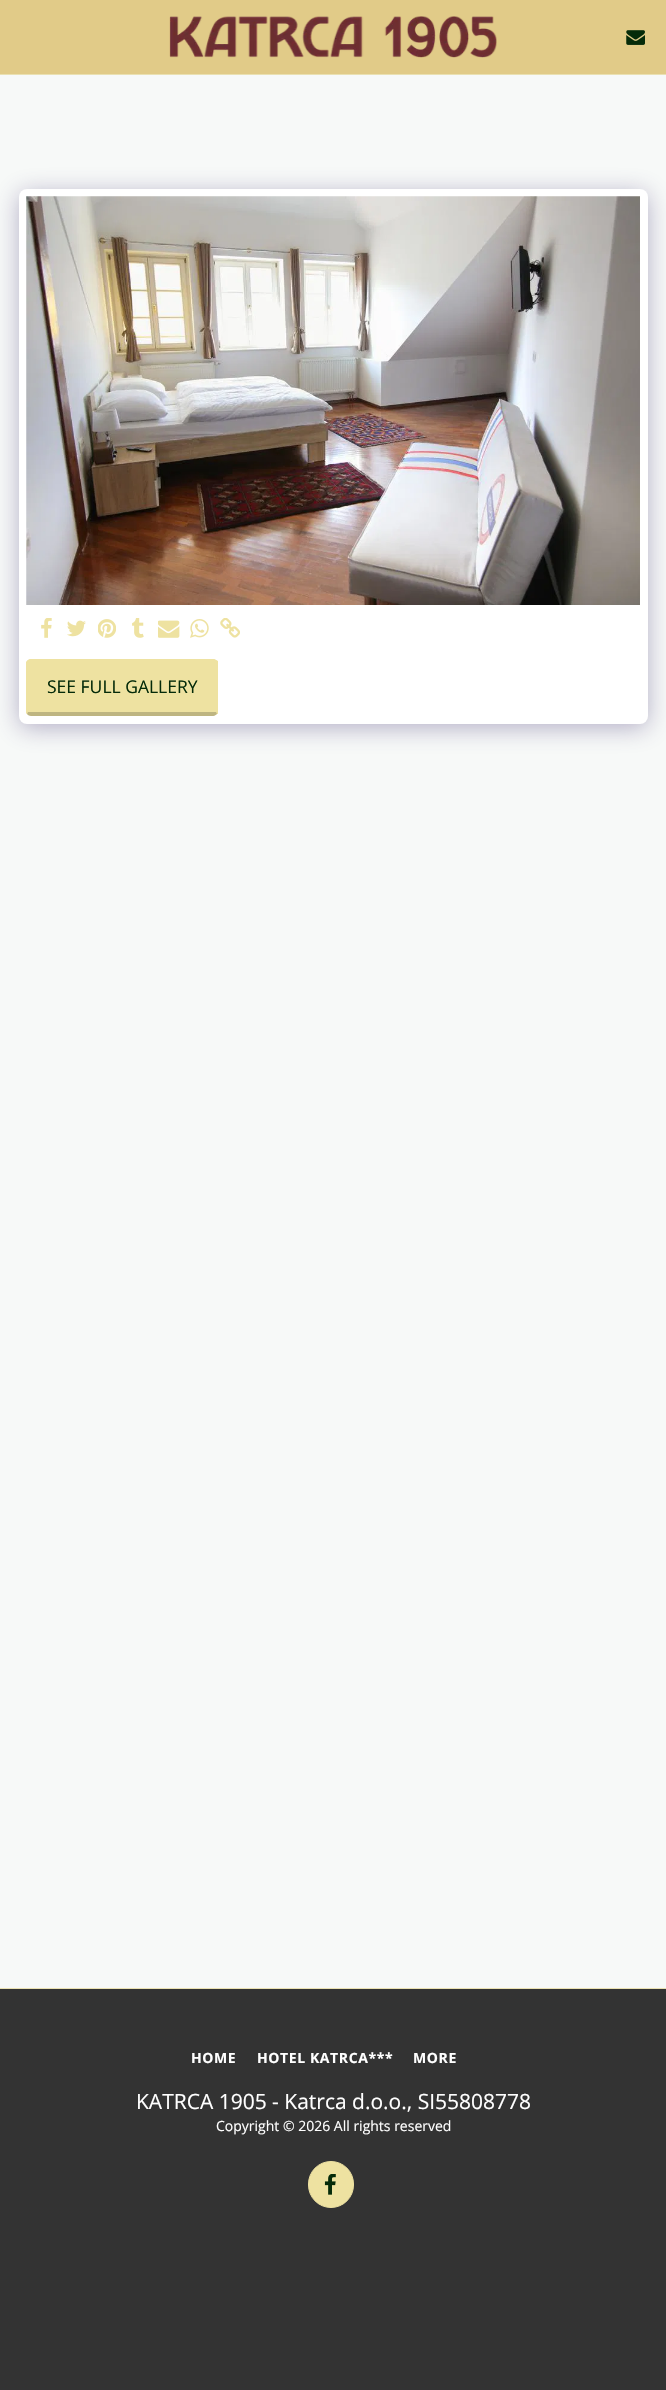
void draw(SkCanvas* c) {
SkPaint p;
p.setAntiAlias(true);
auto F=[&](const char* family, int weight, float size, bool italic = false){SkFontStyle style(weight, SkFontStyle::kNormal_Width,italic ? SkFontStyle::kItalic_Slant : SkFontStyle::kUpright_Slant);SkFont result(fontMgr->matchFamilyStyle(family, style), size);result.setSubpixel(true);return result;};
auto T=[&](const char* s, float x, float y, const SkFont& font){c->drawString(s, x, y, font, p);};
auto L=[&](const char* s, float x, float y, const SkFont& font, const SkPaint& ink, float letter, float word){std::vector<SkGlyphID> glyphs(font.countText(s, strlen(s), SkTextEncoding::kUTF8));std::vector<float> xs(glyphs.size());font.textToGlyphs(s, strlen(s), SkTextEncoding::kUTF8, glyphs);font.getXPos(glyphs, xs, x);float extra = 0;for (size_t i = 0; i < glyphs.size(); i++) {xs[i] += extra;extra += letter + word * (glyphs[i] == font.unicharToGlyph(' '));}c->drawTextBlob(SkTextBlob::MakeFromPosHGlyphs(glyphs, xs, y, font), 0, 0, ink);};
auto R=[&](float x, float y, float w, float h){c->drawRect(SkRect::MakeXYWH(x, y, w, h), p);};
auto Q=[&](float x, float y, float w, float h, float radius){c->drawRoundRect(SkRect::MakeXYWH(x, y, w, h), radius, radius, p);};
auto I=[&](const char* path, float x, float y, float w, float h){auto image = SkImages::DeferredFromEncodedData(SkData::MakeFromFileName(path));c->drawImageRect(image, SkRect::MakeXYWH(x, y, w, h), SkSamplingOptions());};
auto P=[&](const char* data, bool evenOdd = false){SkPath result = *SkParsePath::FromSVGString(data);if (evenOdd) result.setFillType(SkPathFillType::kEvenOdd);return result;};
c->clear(0xff333333);
p.setColor(0xffe1cb88);
R(0,0,666,74);
p.setColor(0xffeae1b2);
R(0,74,666,1);
I("1.png",169,16,328,42);
I("2.png",626,30,19,15);
p.setColor(0xfff7f9f8);
R(0,75,666,1913);
p.setColor(0x664d3f7a);
p.setMaskFilter(SkMaskFilter::MakeBlur(kNormal_SkBlurStyle, 12.5));
c->drawRoundRect(SkRect::MakeXYWH(19,193,629,535),8,8,p);
p.setMaskFilter(nullptr);
p.setColor(0xffffffff);
Q(19,189,629,535,8);
I("3.png",26,196,614,409);
I("4.png",41,618,11,20);
I("5.png",67,620,19,17);
I("6.png",98,619,18,19);
I("7.png",132,618,12,20);
I("8.png",158,620,22,18);
I("9.png",190,619,19,19);
I("10.png",220,618,20,20);
p.setColor(0xffeee2a1);
Q(26,659,192,57,5);
c->drawPath(P("M31 659l-3 1l1 1l1-1h153h30l2 1l1-1l-3-1z"),p);
c->drawPath(P("M216 660l2 1v53h-1l-1-2v-49l-1-2z"),p);
p.setColor(0x33000000);
c->drawPath(P("M217 714l-3 2h-183c-2 0-3-1-4-2l1-3v1h188z"),p);
p.setColor(0xffeee2a1);
c->drawPath(P("M26 662l2-2l1 1l-1 2v48l-1 3l-1-1z"),p);
auto f1 = F("Open Sans",400,17.5);
p.setColor(0xff052b09);
T("SEE FULL GALLERY",47,693,f1);
p.setColor(0xffeae1b2);
R(0,1988,666,1);
auto f2 = F("Open Sans",700,14);
p.setColor(0xffffffff);
L("HOME",191,2063,f2,p,.6,0);
L("HOTEL KATRCA***",257,2063,f2,p,.6,0);
L("MORE",413,2063,f2,p,.6,0);
auto f3 = F("Open Sans",400,21);
T("KATRCA 1905 - Katrca d.o.o., SI55808778",136,2109,f3);
auto f4 = F("Open Sans",400,14);
T("Copyright © 2026 All rights reserved",216,2131,f4);
p.setColor(0xffeee2a1);
c->drawRoundRect(SkRect::MakeXYWH(308.5,2161.5,45,46),22.5,22.5,p);
p.setStroke(true);
p.setStrokeWidth(1);
c->drawRoundRect(SkRect::MakeXYWH(308.5,2161.5,45,46),22.5,22.5,p);
I("11.png",324,2174,12,21);
}
